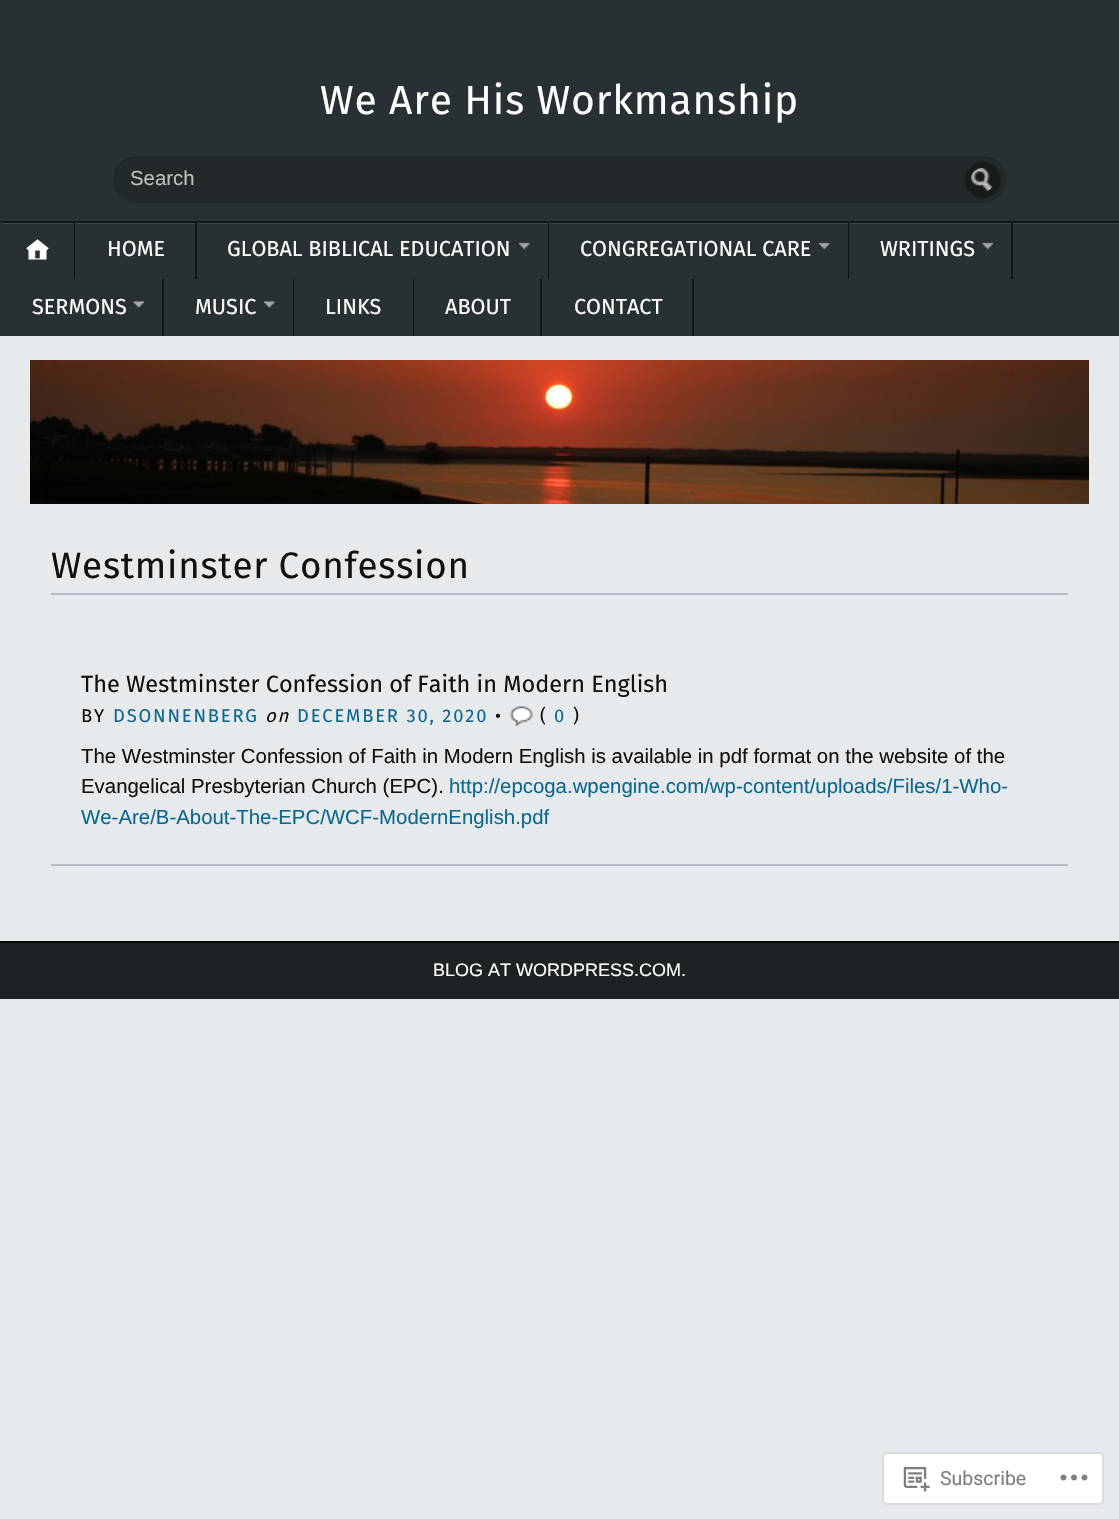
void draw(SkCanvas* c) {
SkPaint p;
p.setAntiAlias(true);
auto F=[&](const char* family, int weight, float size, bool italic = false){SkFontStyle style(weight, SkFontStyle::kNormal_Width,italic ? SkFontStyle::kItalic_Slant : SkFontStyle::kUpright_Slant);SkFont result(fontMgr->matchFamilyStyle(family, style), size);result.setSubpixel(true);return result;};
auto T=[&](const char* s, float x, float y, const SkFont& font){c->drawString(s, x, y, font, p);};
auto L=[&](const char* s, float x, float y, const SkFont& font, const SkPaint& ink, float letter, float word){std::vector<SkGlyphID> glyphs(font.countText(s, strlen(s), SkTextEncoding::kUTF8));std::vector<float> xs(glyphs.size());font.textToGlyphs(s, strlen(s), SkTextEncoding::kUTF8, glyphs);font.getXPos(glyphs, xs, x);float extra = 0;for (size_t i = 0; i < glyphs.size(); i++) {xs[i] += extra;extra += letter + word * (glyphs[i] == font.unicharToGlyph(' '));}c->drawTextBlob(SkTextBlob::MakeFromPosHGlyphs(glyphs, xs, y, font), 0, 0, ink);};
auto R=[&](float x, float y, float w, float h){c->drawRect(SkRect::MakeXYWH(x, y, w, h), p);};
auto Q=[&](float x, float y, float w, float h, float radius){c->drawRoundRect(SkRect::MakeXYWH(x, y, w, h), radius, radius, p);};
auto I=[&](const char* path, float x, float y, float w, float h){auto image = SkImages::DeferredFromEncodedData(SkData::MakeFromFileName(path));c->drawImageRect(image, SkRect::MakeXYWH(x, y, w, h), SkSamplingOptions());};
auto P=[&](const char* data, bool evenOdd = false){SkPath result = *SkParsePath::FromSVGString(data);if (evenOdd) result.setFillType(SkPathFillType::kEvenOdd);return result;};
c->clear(0xffe7eaed);
p.setColor(0xff293033);
R(0,0,1119,336);
auto f1 = F("Fira Sans",400,40.75);
p.setColor(0xfffefefe);
L("We Are His Workmanship",320,114,f1,p,.8,0);
p.setColor(0xff23292b);
Q(113,156,894,47,23.5);
p.setColor(0x1a000000);
c->drawPath(P("M137 158h848c8 0 14 4 18 9c-4-7-11-11-19-11h-848c-12 0-23 11-23 24c0 5 2 10 5 14c-8-13-2-36 19-36z"),p);
auto f2 = F("Arimo",400,20.4);
p.setColor(0xffbfbfbf);
T("Search",130,185,f2);
p.setColor(0xff171b1c);
c->drawCircle(983,180,18,p);
I("1.png",970,168,23,23);
c->save();
c->clipRect(SkRect::MakeXYWH(0,222,1119,114));
p.setColor(0xff3e4547);
c->drawPath(P("M-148 74h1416v410h-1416zm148 150h1119c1 0 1 0 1 1v114c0 1 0 1-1 1h-1119c-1 0-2 0-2-1v-114c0-1 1-1 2-1z",true),p);
c->restore();
p.setColor(0xff121516);
R(0,221,1119,2);
R(74,222,1,57);
p.setColor(0xff293033);
R(0,222,2,2);
I("2.png",26,239,23,21);
p.setColor(0xff121516);
R(195,222,2,57);
p.setColor(0xff293033);
R(75,222,2,2);
auto f3 = F("Fira Sans",400,21.6);
p.setColor(0xfffefefe);
T("HOME",107,256,f3);
p.setColor(0xff121516);
R(548,222,1,57);
p.setColor(0xff293033);
R(197,222,2,2);
p.setColor(0xfffefefe);
T("GLOBAL BIBLICAL EDUCATION",227,256,f3);
I("3.png",519,242,11,8);
p.setColor(0xff121516);
R(848,222,1,57);
p.setColor(0xff293033);
R(549,222,2,2);
p.setColor(0xfffefefe);
T("CONGREGATIONAL CARE",580,256,f3);
I("3.png",819,242,11,8);
p.setColor(0xff121516);
R(1011,222,2,57);
p.setColor(0xff293033);
R(849,222,2,2);
p.setColor(0xfffefefe);
T("WRITINGS",880,256,f3);
I("4.png",982,242,11,8);
p.setColor(0xff121516);
R(162,279,2,57);
p.setColor(0xfffefefe);
T("SERMONS",32,314,f3);
I("5.png",133,301,11,7);
p.setColor(0xff121516);
R(293,279,1,57);
p.setColor(0xfffefefe);
T("MUSIC",195,314,f3);
I("6.png",264,301,11,7);
p.setColor(0xff121516);
R(413,279,1,57);
p.setColor(0xfffefefe);
T("LINKS",325,314,f3);
p.setColor(0xff121516);
R(540,279,2,57);
p.setColor(0xfffefefe);
T("ABOUT",445,314,f3);
p.setColor(0xff121516);
R(692,279,2,57);
p.setColor(0xfffefefe);
T("CONTACT",574,314,f3);
I("7.png",30,360,1059,144);
p.setColor(0xffb4bdc7);
R(51,593,1017,2);
auto f4 = F("Fira Sans",400,36.75);
p.setColor(0xff111111);
L("Westminster Confession",51,578,f4,p,.75,0);
p.setColor(0xffb4bdc7);
R(51,864,1017,2);
auto f5 = F("Fira Sans",400,23.5);
p.setColor(0xff111111);
T("The Westminster Confession of Faith in Modern English",81,692,f5);
auto f6 = F("Fira Sans",400,18.4);
L("BY",81,722,f6,p,1.8,0);
p.setColor(0xff0b688d);
L("DSONNENBERG",113,722,f6,p,1.8,0);
auto f7 = F("Fira Sans",400,18.4,true);
p.setColor(0xff111111);
L("on",265,722,f7,p,1.8,0);
p.setColor(0xff0b688d);
L("DECEMBER 30, 2020",297,722,f6,p,1.8,0);
p.setColor(0xff111111);
L("•",495,722,f6,p,1.8,0);
I("8.png",510,706,23,20);
L("(",540,722,f6,p,1.8,0);
p.setColor(0xff0b688d);
L("0",554,722,f6,p,1.8,0);
p.setColor(0xff111111);
L(")",573,722,f6,p,1.8,0);
T("The Westminster Confession of Faith in Modern English is available in pdf format on the website of the",81,763,f2);
T("Evangelical Presbyterian Church (EPC).",81,793,f2);
p.setColor(0xff0b688d);
T("http://epcoga.wpengine.com/wp-content/uploads/Files/1-Who-",449,793,f2);
T("We-Are/B-About-The-EPC/WCF-ModernEnglish.pdf",81,824,f2);
p.setColor(0xff1d2224);
R(0,943,1119,56);
p.setColor(0xff0a0c0d);
R(0,941,1119,2);
auto f8 = F("Arimo",400,18);
p.setColor(0xfffefefe);
T("BLOG AT WORDPRESS.COM.",433,976,f8);
p.setColor(0xffffffff);
c->drawRoundRect(SkRect::MakeXYWH(883,1453,220,51),4,4,p);
p.setStroke(true);
p.setStrokeWidth(2);
p.setColor(0xffdcdcde);
c->drawRoundRect(SkRect::MakeXYWH(883,1453,220,51),4,4,p);
I("9.png",903,1467,27,25);
auto f9 = F("Roboto",400,19.5);
p.setStroke(false);
p.setColor(0xff7a7e84);
T("Subscribe",940,1485,f9);
I("10.png",1060,1474,28,7);
}
